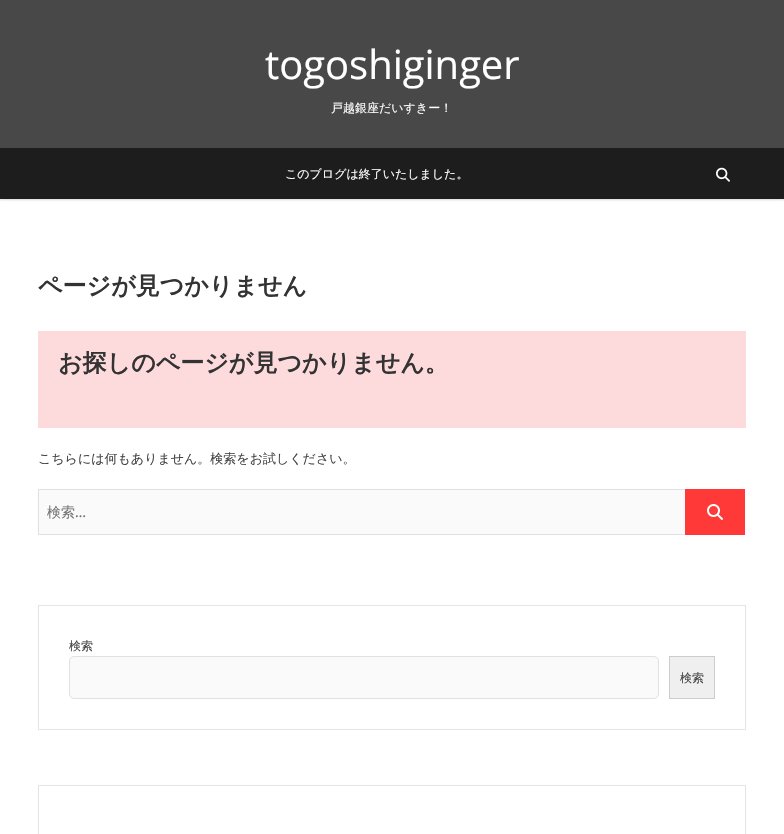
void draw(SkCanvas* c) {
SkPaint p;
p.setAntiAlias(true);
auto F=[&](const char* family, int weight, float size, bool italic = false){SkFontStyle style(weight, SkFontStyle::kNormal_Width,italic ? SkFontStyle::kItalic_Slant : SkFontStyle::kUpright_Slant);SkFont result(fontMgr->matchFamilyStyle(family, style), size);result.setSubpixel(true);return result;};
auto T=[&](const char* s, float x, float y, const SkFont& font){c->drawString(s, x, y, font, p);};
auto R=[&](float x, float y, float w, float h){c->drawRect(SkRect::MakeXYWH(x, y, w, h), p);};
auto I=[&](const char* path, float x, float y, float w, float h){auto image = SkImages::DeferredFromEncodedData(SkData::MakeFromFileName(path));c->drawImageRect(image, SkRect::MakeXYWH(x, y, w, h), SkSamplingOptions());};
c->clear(0xffffffff);
p.setColor(0xff484848);
R(0,0,784,148);
auto f1 = F("Open Sans",400,40);
p.setColor(0xffffffff);
T("togoshiginger",265,79,f1);
auto f2 = F("WenQuanYi Zen Hei",500,12);
T("戸越銀座だいすきー！",331,112,f2);
p.setColor(0x26000000);
p.setMaskFilter(SkMaskFilter::MakeBlur(kNormal_SkBlurStyle, 1));
c->drawRect(SkRect::MakeXYWH(0,149,784,51),p);
p.setMaskFilter(nullptr);
p.setColor(0xff1d1d1d);
R(0,148,784,51);
p.setColor(0xffffffff);
T("このブログは終了いたしました。",285,178,f2);
I("1.png",716,167,14,15);
auto f3 = F("WenQuanYi Zen Hei",700,24);
p.setColor(0xff333333);
T("ページが見つかりません",38,294,f3);
p.setColor(0xfffddbdd);
R(38,331,708,97);
p.setColor(0xff333333);
T("お探しのページが見つかりません。",58,371,f3);
auto f4 = F("WenQuanYi Zen Hei",500,13);
p.setColor(0xff444444);
T("こちらには何もありません。検索をお試しください。",38,463,f4);
p.setColor(0xfffafafa);
c->drawRect(SkRect::MakeXYWH(38.5,489.5,647,45),p);
p.setStroke(true);
p.setStrokeWidth(1);
p.setColor(0xffe1e1e1);
c->drawRect(SkRect::MakeXYWH(38.5,489.5,647,45),p);
auto f5 = F("WenQuanYi Zen Hei",500,14);
p.setStroke(false);
p.setColor(0xff757575);
T("検索",47,517,f5);
auto f6 = F("Merriweather",400,14);
T("…",75,517,f6);
p.setColor(0xffff3838);
R(685,489,60,46);
I("2.png",707,504,16,16);
p.setStroke(true);
p.setColor(0xffe4e4e4);
c->drawRect(SkRect::MakeXYWH(38.5,605.5,707,124),p);
p.setStroke(false);
p.setColor(0xff444444);
T("検索",69,650,f2);
p.setColor(0xfffafafa);
c->drawRoundRect(SkRect::MakeXYWH(69.5,656.5,589,42),4.5,4.5,p);
p.setStroke(true);
p.setColor(0xffe1e1e1);
c->drawRoundRect(SkRect::MakeXYWH(69.5,656.5,589,42),4.5,4.5,p);
p.setStroke(false);
p.setColor(0xffefefef);
c->drawRect(SkRect::MakeXYWH(669.5,656.5,45,42),p);
p.setStroke(true);
p.setColor(0xffcccccc);
c->drawRect(SkRect::MakeXYWH(669.5,656.5,45,42),p);
p.setStroke(false);
p.setColor(0xff444444);
T("検索",680,682,f2);
p.setStroke(true);
p.setColor(0xffe4e4e4);
c->drawRect(SkRect::MakeXYWH(38.5,785.5,707,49),p);
}
